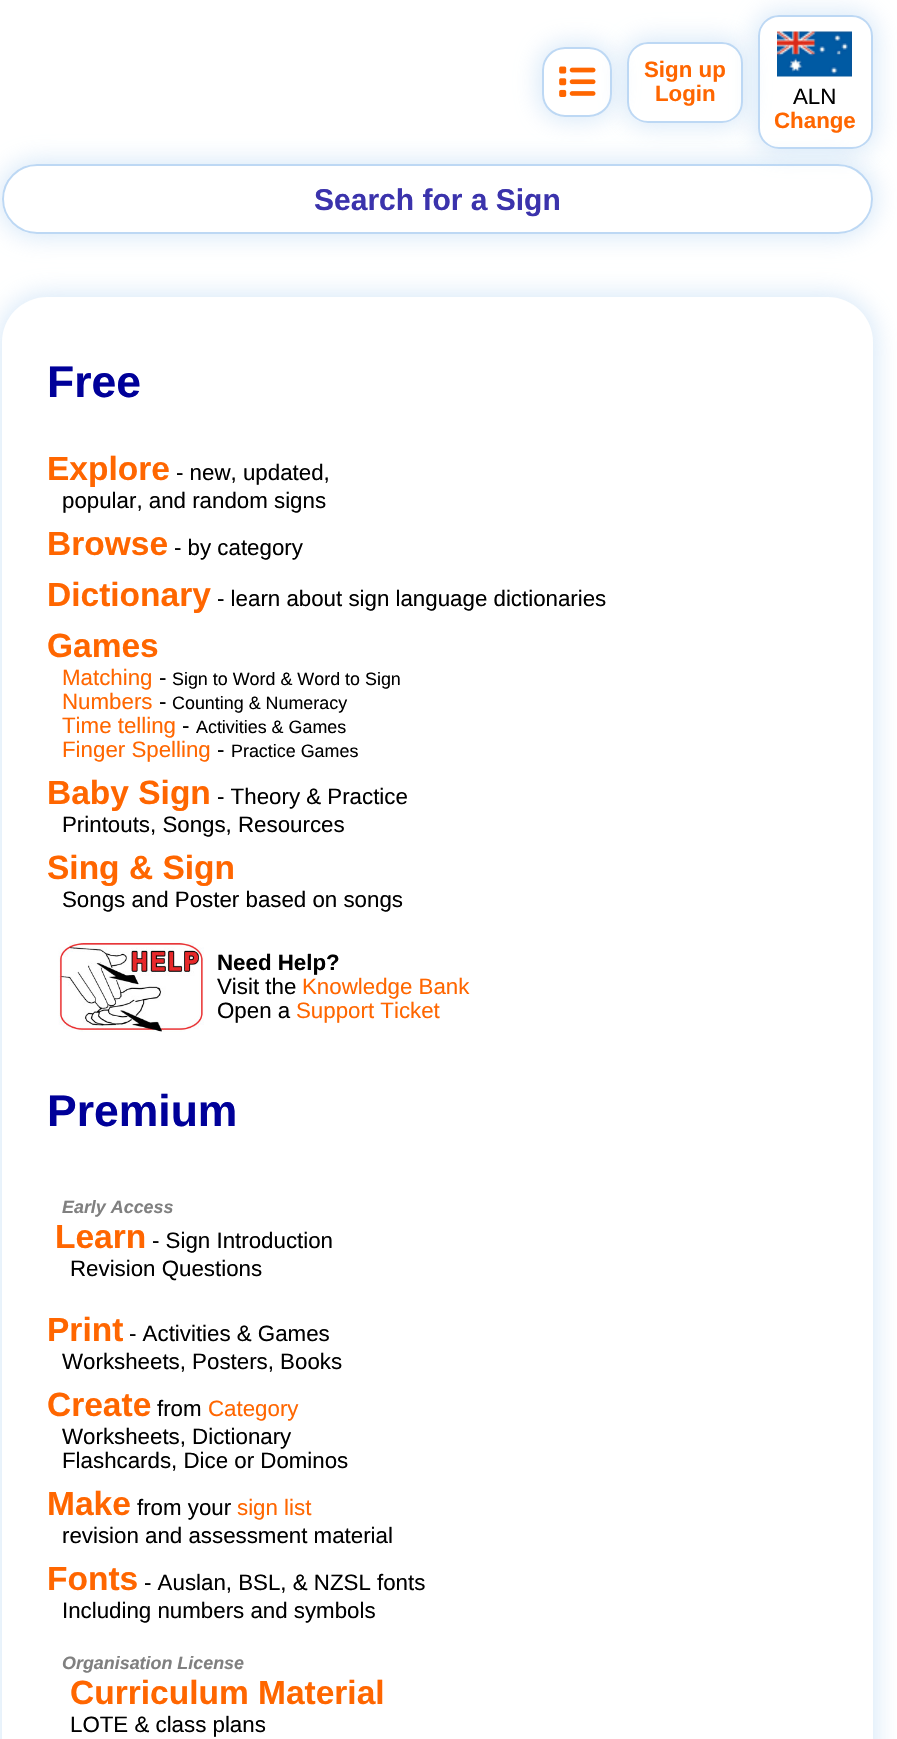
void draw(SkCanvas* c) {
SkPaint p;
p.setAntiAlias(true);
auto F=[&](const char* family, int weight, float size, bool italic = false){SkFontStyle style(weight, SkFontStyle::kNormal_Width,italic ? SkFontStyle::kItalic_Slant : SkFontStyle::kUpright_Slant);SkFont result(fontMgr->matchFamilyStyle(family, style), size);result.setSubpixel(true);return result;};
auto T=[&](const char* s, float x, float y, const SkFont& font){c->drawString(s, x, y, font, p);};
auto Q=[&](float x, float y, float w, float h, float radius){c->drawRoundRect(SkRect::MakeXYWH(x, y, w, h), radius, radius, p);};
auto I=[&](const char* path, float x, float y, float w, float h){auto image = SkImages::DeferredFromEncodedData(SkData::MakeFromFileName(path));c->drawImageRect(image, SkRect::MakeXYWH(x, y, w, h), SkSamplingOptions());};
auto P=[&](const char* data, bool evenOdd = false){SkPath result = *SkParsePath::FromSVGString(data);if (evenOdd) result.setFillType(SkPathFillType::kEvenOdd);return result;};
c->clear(0xffffffff);
c->save();
c->clipPath(P("M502 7h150v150h-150zm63 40h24c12.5 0 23 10.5 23 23v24c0 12.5-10.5 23-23 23h-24c-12.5 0-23-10.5-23-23v-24c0-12.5 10.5-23 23-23z",true),true);
p.setColor(0x99bdd8f4);
p.setMaskFilter(SkMaskFilter::MakeBlur(kNormal_SkBlurStyle, 12));
c->drawRoundRect(SkRect::MakeXYWH(539,44,76,76),26,26,p);
p.setMaskFilter(nullptr);
c->restore();
p.setStroke(true);
p.setStrokeWidth(2);
p.setColor(0xffbdd8f4);
c->drawRoundRect(SkRect::MakeXYWH(543,48,68,68),22,22,p);
I("1.png",559,66,37,31);
c->save();
c->clipPath(P("M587 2h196v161h-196zm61 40h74c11.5 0 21 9.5 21 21v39c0 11.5-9.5 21-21 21h-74c-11.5 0-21-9.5-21-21v-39c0-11.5 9.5-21 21-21z",true),true);
p.setStroke(false);
p.setColor(0x99bdd8f4);
p.setMaskFilter(SkMaskFilter::MakeBlur(kNormal_SkBlurStyle, 12));
c->drawRoundRect(SkRect::MakeXYWH(624,39,122,87),24,24,p);
p.setMaskFilter(nullptr);
c->restore();
p.setStroke(true);
p.setColor(0xffbdd8f4);
c->drawRoundRect(SkRect::MakeXYWH(628,43,114,79),20,20,p);
auto f1 = F("Liberation Sans",700,22.3);
p.setStroke(false);
p.setColor(0xffff6600);
T("Sign up",644,77,f1);
T("Login",655,101,f1);
c->save();
c->clipPath(P("M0 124h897v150h-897zm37 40h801c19.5 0 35 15.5 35 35c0 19.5-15.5 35-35 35h-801c-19.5 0-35-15.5-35-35c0-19.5 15.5-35 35-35z",true),true);
p.setColor(0x99bdd8f4);
p.setMaskFilter(SkMaskFilter::MakeBlur(kNormal_SkBlurStyle, 12));
c->drawRoundRect(SkRect::MakeXYWH(-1,161,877,76),38,38,p);
p.setMaskFilter(nullptr);
c->restore();
p.setStroke(true);
p.setColor(0xffbdd8f4);
c->drawRoundRect(SkRect::MakeXYWH(3,165,869,68),34,34,p);
c->save();
c->clipPath(P("M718 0h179v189h-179zm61 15h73c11.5 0 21 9.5 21 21v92c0 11.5-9.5 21-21 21h-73c-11.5 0-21-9.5-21-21v-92c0-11.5 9.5-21 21-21z",true),true);
p.setStroke(false);
p.setColor(0x99bdd8f4);
p.setMaskFilter(SkMaskFilter::MakeBlur(kNormal_SkBlurStyle, 12));
c->drawRoundRect(SkRect::MakeXYWH(755,12,121,140),24,24,p);
p.setMaskFilter(nullptr);
c->restore();
p.setStroke(true);
p.setColor(0xffbdd8f4);
c->drawRoundRect(SkRect::MakeXYWH(759,16,113,132),20,20,p);
I("2.png",777,31,75,46);
auto f2 = F("Liberation Sans",400,22.3);
p.setStroke(false);
p.setColor(0xff000000);
T("ALN",793,104,f2);
p.setColor(0xffff6600);
T("Change",774,128,f1);
auto f3 = F("Liberation Sans",700,30);
p.setColor(0xff3b33ac);
T("Search for a Sign",314,210,f3);
p.setColor(0x99bdd8f4);
p.setMaskFilter(SkMaskFilter::MakeBlur(kNormal_SkBlurStyle, 12));
c->drawRoundRect(SkRect::MakeXYWH(-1,294,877,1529),48,48,p);
p.setMaskFilter(nullptr);
p.setColor(0xffffffff);
Q(2,297,871,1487,45);
auto f4 = F("Liberation Sans",700,44.5);
p.setColor(0xff000099);
T("Free",47,397,f4);
auto f5 = F("Liberation Sans",700,33.5);
p.setColor(0xffff6600);
T("Explore",47,480,f5);
p.setColor(0xff000000);
T("- new, updated,",176,480,f2);
T("popular, and random signs",62,508,f2);
p.setColor(0xffff6600);
T("Browse",47,555,f5);
p.setColor(0xff000000);
T("- by category",174,555,f2);
p.setColor(0xffff6600);
T("Dictionary",47,606,f5);
p.setColor(0xff000000);
T("- learn about sign language dictionaries",217,606,f2);
p.setColor(0xffff6600);
T("Games",47,657,f5);
T("Matching",62,685,f2);
p.setColor(0xff000000);
T("-",159,685,f2);
auto f6 = F("Liberation Sans",400,17.9);
T("Sign to Word & Word to Sign",172,685,f6);
p.setColor(0xffff6600);
T("Numbers",62,709,f2);
p.setColor(0xff000000);
T("-",159,709,f2);
T("Counting & Numeracy",172,709,f6);
p.setColor(0xffff6600);
T("Time telling",62,733,f2);
p.setColor(0xff000000);
T("-",182,733,f2);
T("Activities & Games",196,733,f6);
p.setColor(0xffff6600);
T("Finger Spelling",62,757,f2);
p.setColor(0xff000000);
T("-",217,757,f2);
T("Practice Games",231,757,f6);
p.setColor(0xffff6600);
T("Baby Sign",47,804,f5);
p.setColor(0xff000000);
T("- Theory & Practice",217,804,f2);
T("Printouts, Songs, Resources",62,832,f2);
p.setColor(0xffff6600);
T("Sing & Sign",47,879,f5);
p.setColor(0xff000000);
T("Songs and Poster based on songs",62,907,f2);
I("3.png",58,942,146,90);
T("Need Help?",217,970,f1);
T("Visit the",217,994,f2);
p.setColor(0xffff6600);
T("Knowledge Bank",302,994,f2);
p.setColor(0xff000000);
T("Open a",217,1018,f2);
p.setColor(0xffff6600);
T("Support Ticket",296,1018,f2);
p.setColor(0xff000099);
T("Premium",47,1126,f4);
auto f7 = F("Liberation Sans",700,17.9,true);
p.setColor(0xff808080);
T("Early Access",62,1213,f7);
p.setColor(0xffff6600);
T("Learn",55,1248,f5);
p.setColor(0xff000000);
T("- Sign Introduction",152,1248,f2);
T("Revision Questions",70,1276,f2);
p.setColor(0xffff6600);
T("Print",47,1341,f5);
p.setColor(0xff000000);
T("- Activities & Games",129,1341,f2);
T("Worksheets, Posters, Books",62,1369,f2);
p.setColor(0xffff6600);
T("Create",47,1416,f5);
p.setColor(0xff000000);
T("from",157,1416,f2);
p.setColor(0xffff6600);
T("Category",208,1416,f2);
p.setColor(0xff000000);
T("Worksheets, Dictionary",62,1444,f2);
T("Flashcards, Dice or Dominos",62,1468,f2);
p.setColor(0xffff6600);
T("Make",47,1515,f5);
p.setColor(0xff000000);
T("from your",137,1515,f2);
p.setColor(0xffff6600);
T("sign list",237,1515,f2);
p.setColor(0xff000000);
T("revision and assessment material",62,1543,f2);
p.setColor(0xffff6600);
T("Fonts",47,1590,f5);
p.setColor(0xff000000);
T("- Auslan, BSL, & NZSL fonts",144,1590,f2);
T("Including numbers and symbols",62,1618,f2);
p.setColor(0xff808080);
T("Organisation License",62,1669,f7);
p.setColor(0xffff6600);
T("Curriculum Material",70,1704,f5);
p.setColor(0xff000000);
T("LOTE & class plans",70,1732,f2);
}
